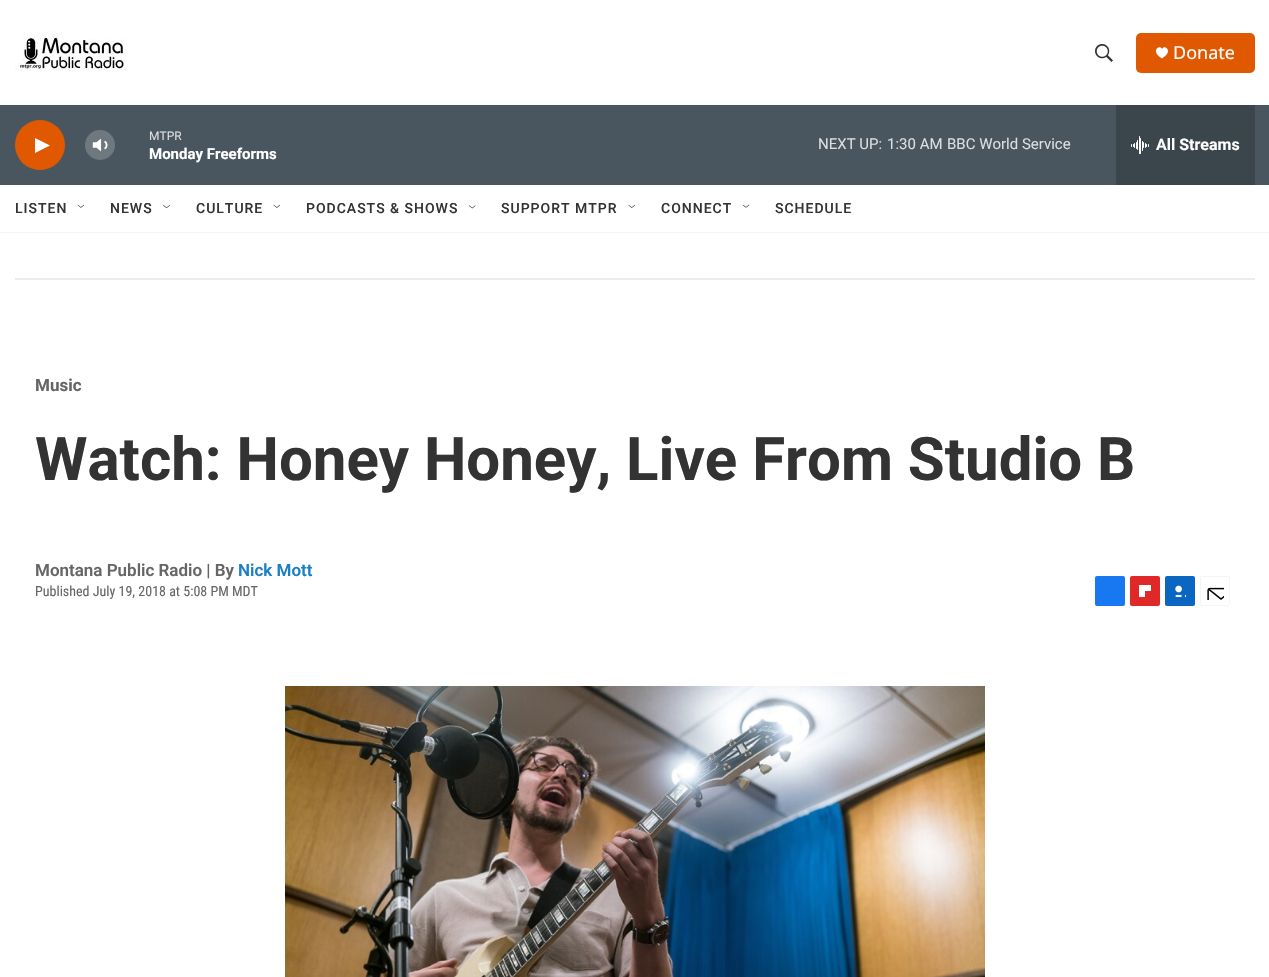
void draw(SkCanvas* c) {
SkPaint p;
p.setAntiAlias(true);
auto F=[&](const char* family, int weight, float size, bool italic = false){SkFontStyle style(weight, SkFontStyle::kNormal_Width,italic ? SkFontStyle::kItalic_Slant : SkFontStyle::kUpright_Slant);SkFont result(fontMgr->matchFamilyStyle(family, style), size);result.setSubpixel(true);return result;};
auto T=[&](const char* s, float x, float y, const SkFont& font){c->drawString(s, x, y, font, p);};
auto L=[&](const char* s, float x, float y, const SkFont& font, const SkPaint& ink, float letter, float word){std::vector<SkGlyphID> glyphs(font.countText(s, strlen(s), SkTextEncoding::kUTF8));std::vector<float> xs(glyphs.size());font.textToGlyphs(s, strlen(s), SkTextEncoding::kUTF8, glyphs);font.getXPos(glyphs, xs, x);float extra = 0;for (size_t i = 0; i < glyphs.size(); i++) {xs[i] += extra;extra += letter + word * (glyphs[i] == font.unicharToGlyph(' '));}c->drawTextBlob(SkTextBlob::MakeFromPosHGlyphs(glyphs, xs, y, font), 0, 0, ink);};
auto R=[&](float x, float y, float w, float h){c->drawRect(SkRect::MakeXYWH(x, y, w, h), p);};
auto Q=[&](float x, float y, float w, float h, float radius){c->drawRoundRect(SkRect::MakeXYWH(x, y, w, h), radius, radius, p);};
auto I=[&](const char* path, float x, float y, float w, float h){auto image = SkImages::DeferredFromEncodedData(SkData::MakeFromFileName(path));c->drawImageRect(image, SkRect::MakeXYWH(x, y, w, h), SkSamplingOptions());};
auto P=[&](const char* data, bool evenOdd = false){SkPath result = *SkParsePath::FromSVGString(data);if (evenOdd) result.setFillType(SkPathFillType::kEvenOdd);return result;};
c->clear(0xffffffff);
p.setColor(0xfff5f5f5);
R(0,232,1269,1);
I("1.png",15,31,112,40);
I("2.png",1095,44,18,18);
p.setColor(0xffe05900);
Q(1136,33,119,40,5);
p.setColor(0xffffffff);
c->drawPath(P("M1162 49c-2-5-12.5 2 0 9.5c12.5-7.5 2-14.5 0-9.5z"),p);
auto f1 = F("Noto Sans",400,18);
T("Donate",1173,59,f1);
p.setColor(0xff4a565f);
R(0,105,1269,80);
p.setColor(0xffe05900);
c->drawCircle(40,145,25,p);
p.setColor(0xffffffff);
c->drawPath(P("M35 138l15 7.5l-15 7.5z"),p);
I("3.png",92,138,16,14);
p.setColor(0x33ffffff);
c->drawCircle(100,145,15,p);
auto f2 = F("Roboto",400,12);
p.setColor(0xffdbdddf);
T("MTPR",149,140,f2);
auto f3 = F("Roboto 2",700,15);
p.setColor(0xffffffff);
T("Monday Freeforms",149,159,f3);
auto f4 = F("Roboto",400,15);
p.setColor(0xffdbdddf);
T("NEXT UP:",818,149,f4);
T("1:30 AM",887,149,f4);
T("BBC World Service",947,149,f4);
p.setColor(0xff3b454c);
R(1116,105,139,80);
I("4.png",1131,136,18,18);
auto f5 = F("Roboto 2",700,16);
p.setColor(0xffffffff);
T("All Streams",1156,150,f5);
auto f6 = F("Roboto",500,14);
p.setColor(0xff333333);
L("LISTEN",15,213,f6,p,1,0);
I("5.png",77,204,7,4);
L("NEWS",110,213,f6,p,1,0);
I("6.png",163,205,7,4);
L("CULTURE",196,213,f6,p,1,0);
I("7.png",273,204,7,4);
L("PODCASTS & SHOWS",306,213,f6,p,1,0);
I("8.png",469,205,7,4);
L("SUPPORT MTPR",501,213,f6,p,1,0);
I("9.png",628,204,7,4);
L("CONNECT",661,213,f6,p,1,0);
I("10.png",742,204,8,4);
L("SCHEDULE",775,213,f6,p,1,0);
p.setColor(0xffececec);
R(15,278,1240,2);
auto f7 = F("Roboto",700,17);
p.setColor(0xff666666);
T("Music",35,391,f7);
auto f8 = F("Roboto",700,60);
p.setColor(0xff333333);
T("Watch: Honey Honey, Live From Studio B",35,480,f8);
auto f9 = F("Roboto",600,17);
p.setColor(0xff666666);
T("Montana Public Radio | By",35,576,f9);
p.setColor(0xff1a7fc3);
T("Nick Mott",238,576,f9);
auto f10 = F("Roboto Condensed",400,14);
p.setColor(0xff666666);
T("Published July 19, 2018 at 5:08 PM MDT",35,596,f10);
p.setColor(0xff1778f2);
Q(1095,576,30,30,2);
p.setColor(0xffe12828);
Q(1130,576,30,30,2);
I("11.png",1139,585,12,12);
p.setColor(0xff0a66c1);
Q(1165,576,30,30,2);
I("12.png",1175,585,11,12);
p.setStroke(true);
p.setStrokeWidth(1);
p.setColor(0xfff5f5f5);
c->drawRoundRect(SkRect::MakeXYWH(1200.5,576.5,29,29),1.5,1.5,p);
I("13.png",1207,587,17,13);
I("14.png",285,686,700,291);
}
